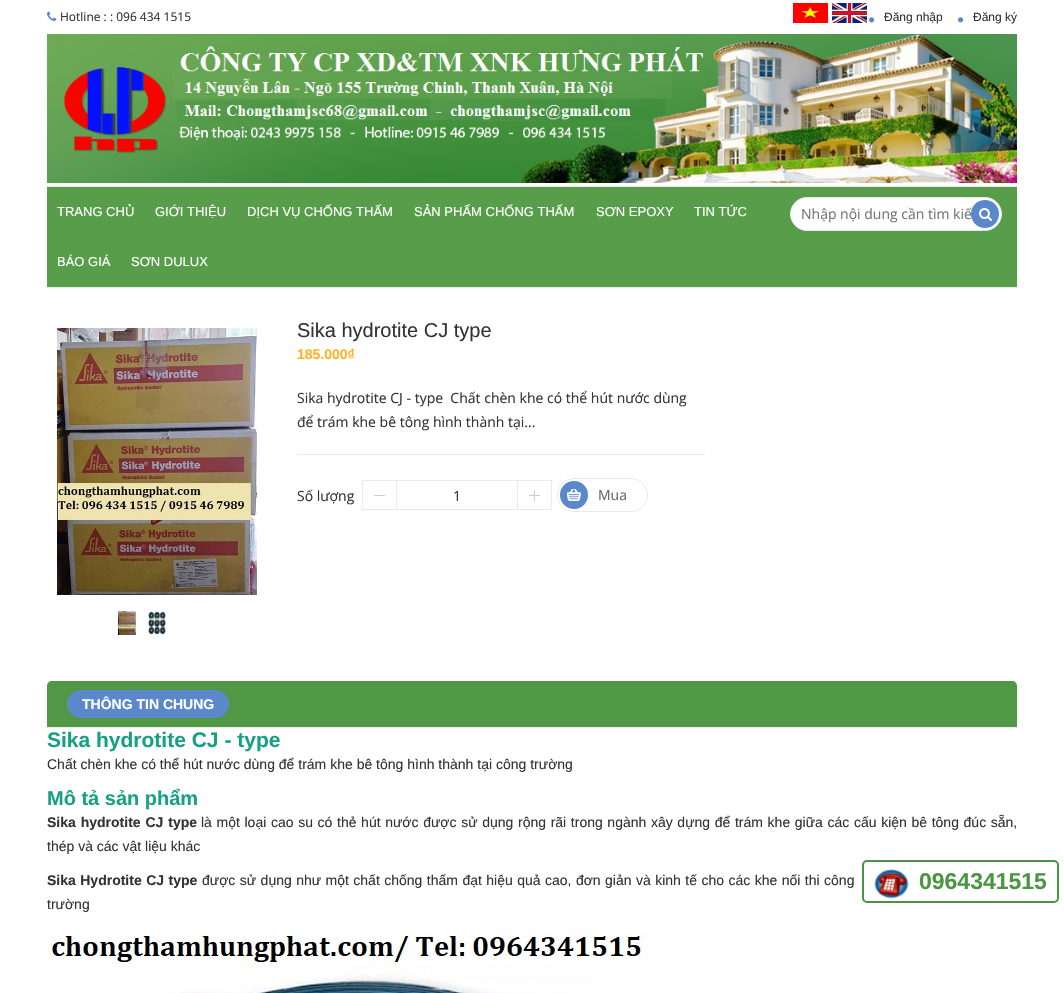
void draw(SkCanvas* c) {
SkPaint p;
p.setAntiAlias(true);
auto F=[&](const char* family, int weight, float size, bool italic = false){SkFontStyle style(weight, SkFontStyle::kNormal_Width,italic ? SkFontStyle::kItalic_Slant : SkFontStyle::kUpright_Slant);SkFont result(fontMgr->matchFamilyStyle(family, style), size);result.setSubpixel(true);return result;};
auto T=[&](const char* s, float x, float y, const SkFont& font){c->drawString(s, x, y, font, p);};
auto L=[&](const char* s, float x, float y, const SkFont& font, const SkPaint& ink, float letter, float word){std::vector<SkGlyphID> glyphs(font.countText(s, strlen(s), SkTextEncoding::kUTF8));std::vector<float> xs(glyphs.size());font.textToGlyphs(s, strlen(s), SkTextEncoding::kUTF8, glyphs);font.getXPos(glyphs, xs, x);float extra = 0;for (size_t i = 0; i < glyphs.size(); i++) {xs[i] += extra;extra += letter + word * (glyphs[i] == font.unicharToGlyph(' '));}c->drawTextBlob(SkTextBlob::MakeFromPosHGlyphs(glyphs, xs, y, font), 0, 0, ink);};
auto R=[&](float x, float y, float w, float h){c->drawRect(SkRect::MakeXYWH(x, y, w, h), p);};
auto Q=[&](float x, float y, float w, float h, float radius){c->drawRoundRect(SkRect::MakeXYWH(x, y, w, h), radius, radius, p);};
auto I=[&](const char* path, float x, float y, float w, float h){auto image = SkImages::DeferredFromEncodedData(SkData::MakeFromFileName(path));c->drawImageRect(image, SkRect::MakeXYWH(x, y, w, h), SkSamplingOptions());};
auto P=[&](const char* data, bool evenOdd = false){SkPath result = *SkParsePath::FromSVGString(data);if (evenOdd) result.setFillType(SkPathFillType::kEvenOdd);return result;};
c->clear(0xffffffff);
I("1.png",47,11,10,10);
auto f1 = F("Open Sans",400,12);
p.setColor(0xff333333);
T("Hotline : : 096 434 1515",60,21,f1);
I("2.png",793,3,35,20);
I("3.png",832,3,35,20);
I("4.png",869,17,6,6);
auto f2 = F("Liberation Sans",400,12);
T("Đăng nhập",884,21,f2);
I("4.png",958,17,6,6);
T("Đăng ký",973,21,f2);
I("5.png",47,34,970,149);
p.setColor(0xff589d4a);
R(47,187,970,100);
p.setColor(0xffeaeaea);
R(47,186,970,1);
R(47,287,970,1);
auto f3 = F("Liberation Sans",400,13);
p.setColor(0xffffffff);
T("TRANG CHỦ",57,216,f3);
T("GIỚI THIỆU",155,216,f3);
T("DỊCH VỤ CHỐNG THẤM",247,216,f3);
T("SẢN PHẨM CHỐNG THẤM",414,216,f3);
T("SƠN EPOXY",596,216,f3);
T("TIN TỨC",694,216,f3);
T("BÁO GIÁ",57,266,f3);
T("SƠN DULUX",131,266,f3);
c->drawRoundRect(SkRect::MakeXYWH(790.5,197.5,211,33),16.5,16.5,p);
p.setStroke(true);
p.setStrokeWidth(1);
p.setColor(0xffeaeaea);
c->drawRoundRect(SkRect::MakeXYWH(790.5,197.5,211,33),16.5,16.5,p);
auto f4 = F("Open Sans",400,14);
p.setStroke(false);
p.setColor(0xff757575);
T("Nhập nội dung cần tìm kiế",801,219,f4);
p.setColor(0xff5a88ca);
c->drawCircle(985,214,14,p);
I("6.png",979,208,13,13);
I("7.png",57,328,200,267);
I("8.png",118,611,18,24);
I("9.png",148,612,18,23);
auto f5 = F("Liberation Sans",400,20);
p.setColor(0xff333333);
T("Sika hydrotite CJ type",297,337,f5);
auto f6 = F("Liberation Sans",700,14);
p.setColor(0xffffb424);
T("185.000₫",297,359,f6);
p.setColor(0xffeaeaea);
R(297,454,408,1);
p.setColor(0xff333333);
T("Sika hydrotite CJ - type  Chất chèn khe có thể hút nước dùng",297,403,f4);
T("để trám khe bê tông hình thành tại...",297,427,f4);
T("Số lượng",297,501,f4);
I("10.png",374,495,11,1);
p.setStroke(true);
p.setColor(0xffeaeaea);
c->drawRect(SkRect::MakeXYWH(362.5,480.5,34,29),p);
p.setStroke(false);
R(397,480,120,1);
R(397,509,120,1);
p.setColor(0xff333333);
T("1",453,501,f4);
I("11.png",529,490,11,11);
p.setStroke(true);
p.setColor(0xffeaeaea);
c->drawRect(SkRect::MakeXYWH(517.5,480.5,34,29),p);
c->drawRoundRect(SkRect::MakeXYWH(557.5,478.5,90,33),16.5,16.5,p);
p.setStroke(false);
p.setColor(0xff5a88ca);
c->drawCircle(574,495,14,p);
I("12.png",567,489,14,12);
p.setColor(0xff666666);
T("Mua",598,500,f4);
p.setColor(0xff509846);
c->drawPath(P("M52 681h960c3 0 5 2 5 5v42h-970v-42c0-3 2-5 5-5z"),p);
p.setColor(0xffeaeaea);
R(47,727,970,1);
p.setColor(0xff5a88ca);
Q(67,690,162,28,14);
p.setColor(0xffffffff);
T("THÔNG TIN CHUNG",82,709,f6);
auto f7 = F("Liberation Sans",700,21);
p.setColor(0xff16a085);
T("Sika hydrotite CJ - type",47,747,f7);
auto f8 = F("Liberation Sans",400,14);
p.setColor(0xff333333);
T("Chất chèn khe có thể hút nước dùng để trám khe bê tông hình thành tại công trường",47,769,f8);
auto f9 = F("Liberation Sans",700,20);
p.setColor(0xff16a085);
T("Mô tả sản phẩm",47,805,f9);
p.setColor(0xff333333);
L("Sika hydrotite CJ type",47,827,f6,p,0,1);
L("là một loại cao su có thẻ hút nước được sử dụng rộng rãi trong ngành xây dựng để trám khe giữa các cấu kiện bê tông đúc sẵn,",201,827,f8,p,0,.75);
T("thép và các vật liệu khác",47,851,f8);
L("Sika Hydrotite CJ type",47,885,f6,p,0,.55);
L("được sử dụng như một chất chống thấm đạt hiệu quả cao, đơn giản và kinh tế cho các khe nối thi công",202,885,f8,p,0,.55);
T("trường",47,909,f8);
I("13.png",47,926,608,67);
p.setStroke(true);
p.setStrokeWidth(2);
p.setColor(0xff4a9542);
c->drawRoundRect(SkRect::MakeXYWH(863,861,195,41),4,4,p);
I("14.png",874,869,35,30);
auto f10 = F("Liberation Sans",700,23);
p.setStroke(false);
T("0964341515",919,889,f10);
}
